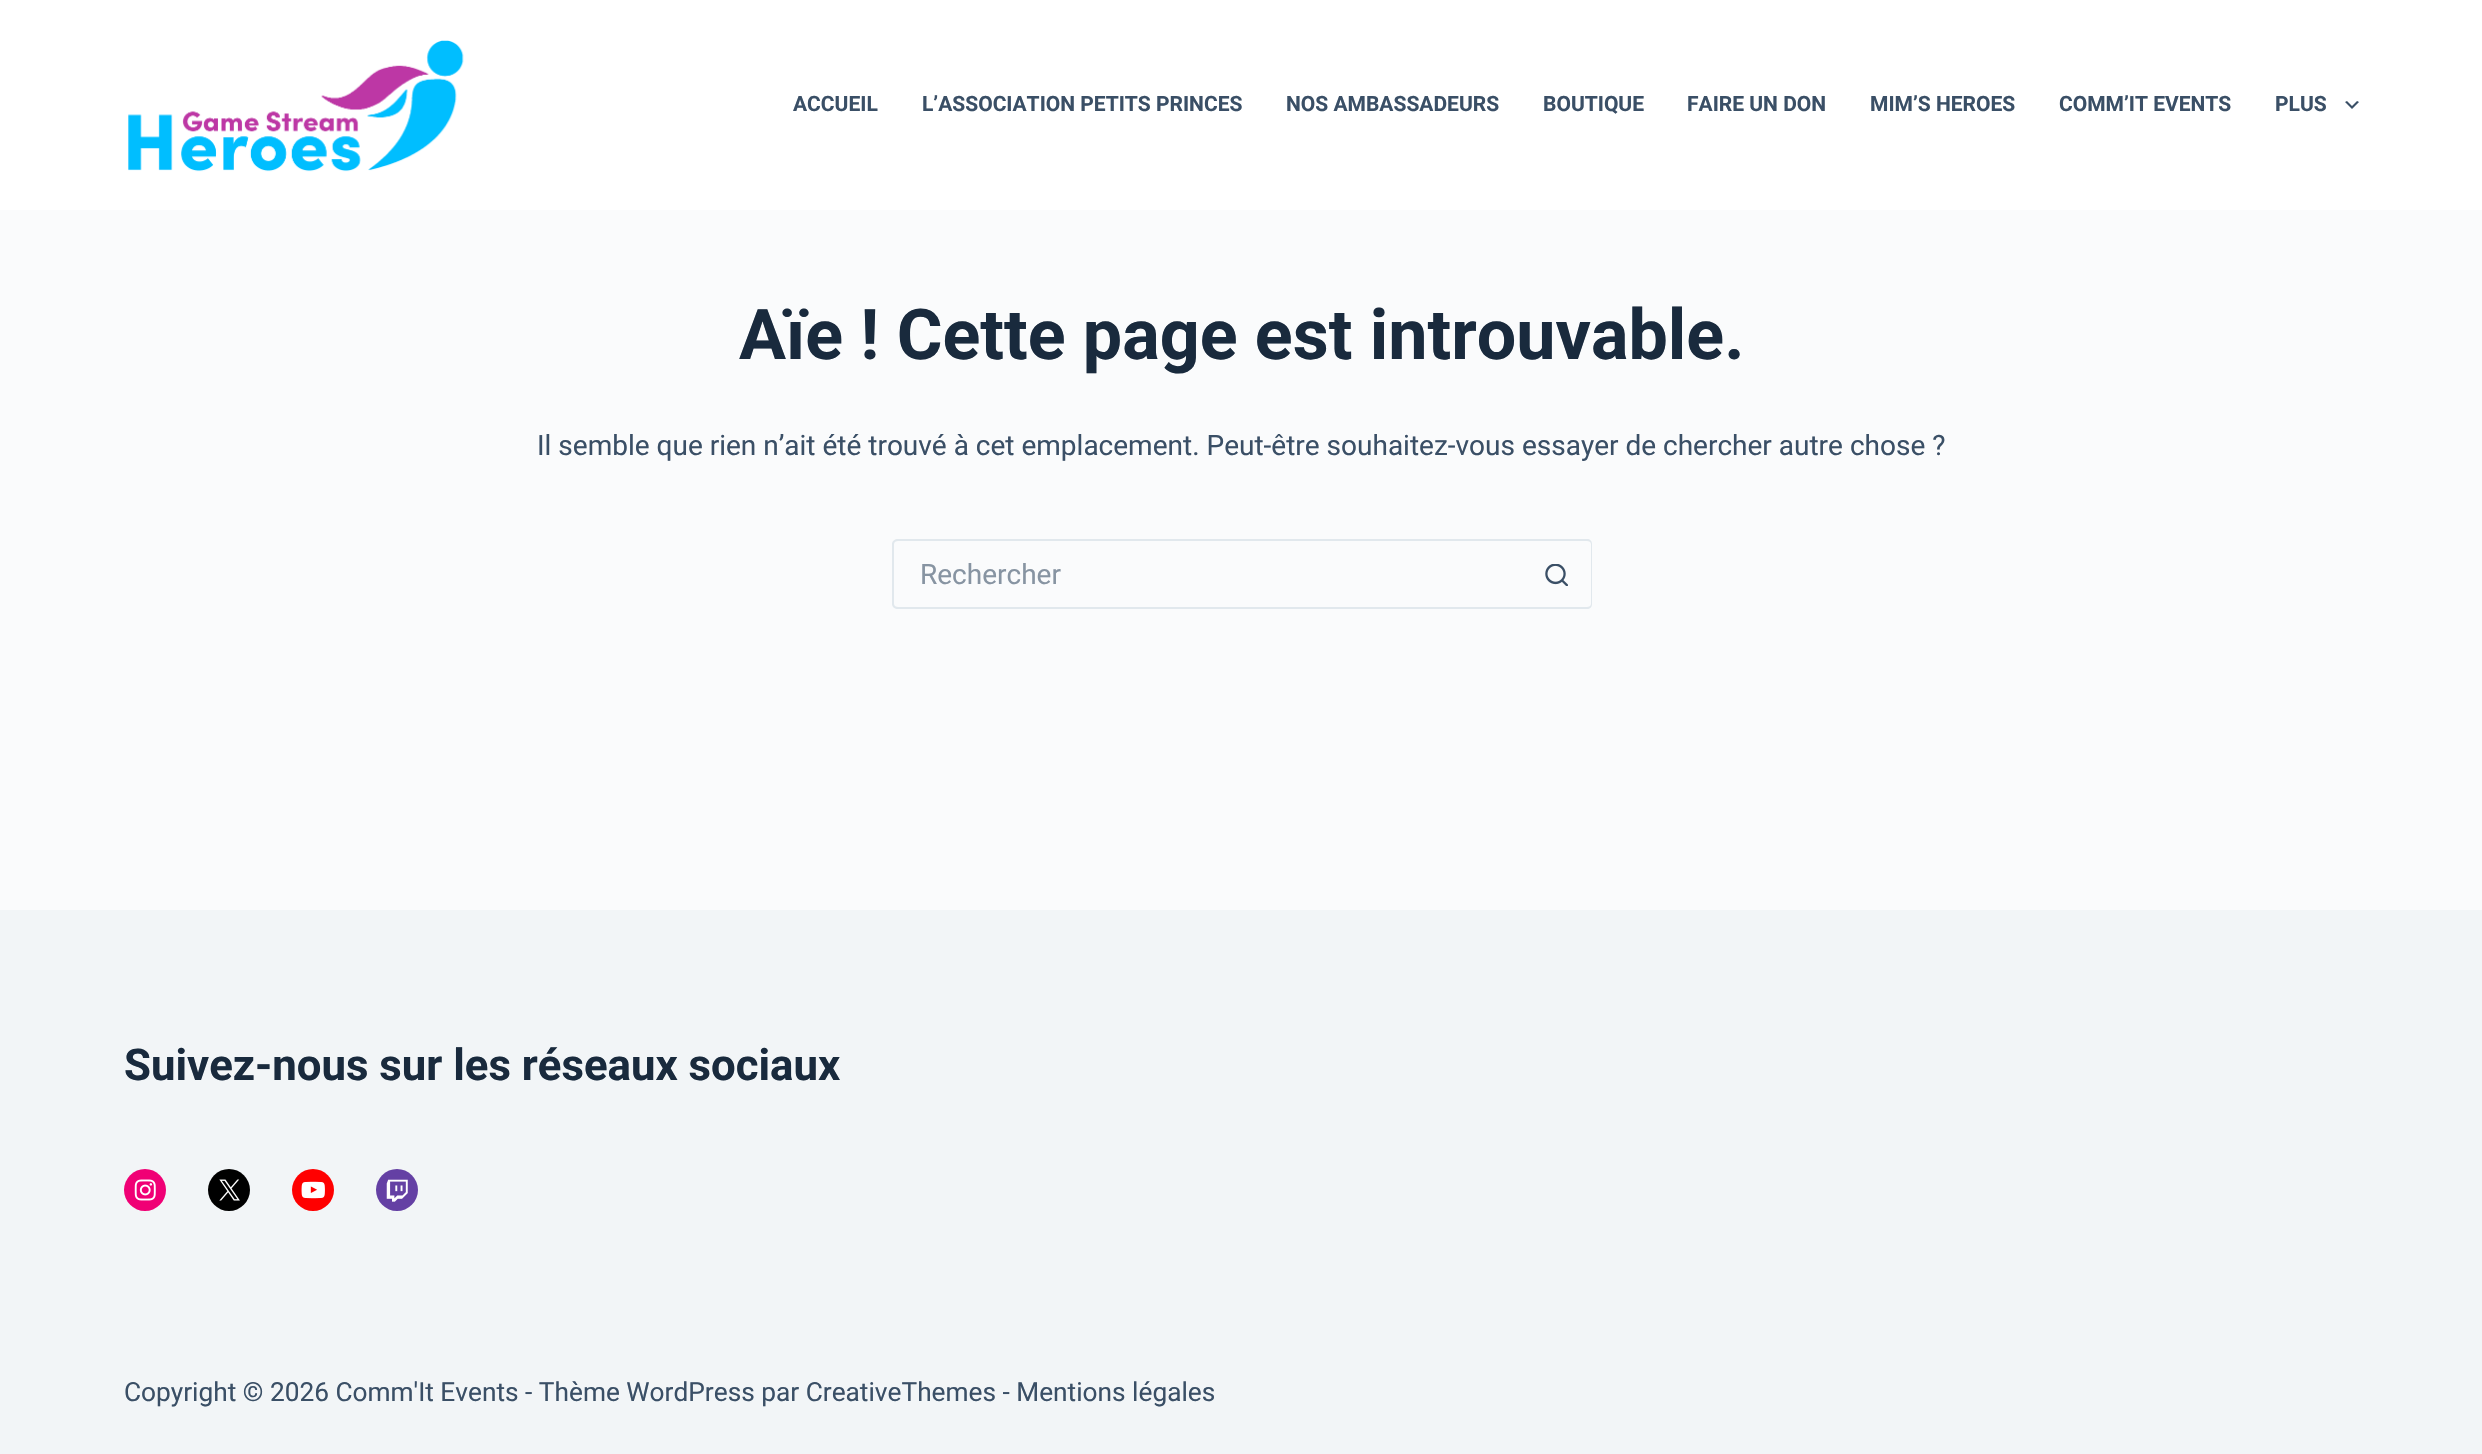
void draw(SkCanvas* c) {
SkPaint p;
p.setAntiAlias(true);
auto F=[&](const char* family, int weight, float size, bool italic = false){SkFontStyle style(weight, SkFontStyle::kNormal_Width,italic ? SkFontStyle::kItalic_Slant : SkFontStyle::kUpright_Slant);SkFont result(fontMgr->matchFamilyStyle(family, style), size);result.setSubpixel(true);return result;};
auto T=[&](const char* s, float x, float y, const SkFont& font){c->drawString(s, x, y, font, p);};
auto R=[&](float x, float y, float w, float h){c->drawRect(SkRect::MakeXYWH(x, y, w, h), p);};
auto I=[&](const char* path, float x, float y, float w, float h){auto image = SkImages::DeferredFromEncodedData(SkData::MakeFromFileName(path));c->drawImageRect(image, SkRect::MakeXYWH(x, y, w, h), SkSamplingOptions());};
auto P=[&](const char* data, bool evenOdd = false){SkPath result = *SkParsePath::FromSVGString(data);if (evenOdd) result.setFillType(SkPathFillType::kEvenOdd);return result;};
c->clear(0xfffafbfc);
p.setColor(0xffffffff);
R(0,0,2482,210);
I("1.png",128,40,336,132);
auto f1 = F("Roboto",700,21);
p.setColor(0xff3a4f66);
T("ACCUEIL",793,111,f1);
T("L’ASSOCIATION PETITS PRINCES",922,111,f1);
T("NOS AMBASSADEURS",1286,111,f1);
T("BOUTIQUE",1543,111,f1);
T("FAIRE UN DON",1687,111,f1);
T("MIM’S HEROES",1870,111,f1);
T("COMM’IT EVENTS",2059,111,f1);
T("PLUS",2275,111,f1);
I("2.png",2345,101,14,8);
auto f2 = F("Roboto",700,70);
p.setColor(0xff192a3d);
T("Aïe ! Cette page est introuvable.",739,359,f2);
auto f3 = F("Roboto",400,28);
p.setColor(0xff3a4f66);
T("Il semble que rien n’ait été trouvé à cet emplacement. Peut-être souhaitez-vous essayer de chercher autre chose ?",537,455,f3);
p.setColor(0xffe1e8ed);
c->drawPath(P("M898 539h624v70h-624c-3 0-6-2-6-5v-60c0-3 3-5 6-5zm0 2h624v66h-624c-2 0-4-1-4-3v-60c0-2 2-3 4-3z",true),p);
p.setColor(0xff8794a2);
T("Rechercher",920,584,f3);
p.setColor(0xffe1e8ed);
c->drawPath(P("M1522 539h65c3 0 5 2 5 5v60c0 3-2 5-5 5h-65zm0 2h65c2 0 4 1 4 3v60c0 2-2 3-4 3h-65z",true),p);
I("3.png",1545,564,23,22);
p.setColor(0xfff2f5f7);
R(0,910,2482,544);
auto f4 = F("Roboto",700,43.75);
p.setColor(0xff192a3d);
T("Suivez-nous sur les réseaux sociaux",124,1080,f4);
p.setColor(0xfff00075);
c->drawCircle(145,1190,21,p);
I("4.png",134,1179,22,22);
p.setColor(0xff000000);
c->drawCircle(229,1190,21,p);
I("5.png",219,1179,21,22);
p.setColor(0xffff0000);
c->drawCircle(313,1190,21,p);
I("6.png",301,1181,24,18);
p.setColor(0xff6440a4);
c->drawCircle(397,1190,21,p);
I("7.png",386,1179,22,23);
auto f5 = F("Roboto",400,26.25);
p.setColor(0xff3a4f66);
T("Copyright © 2026 Comm'It Events - Thème WordPress par CreativeThemes - Mentions légales",124,1401,f5);
}
